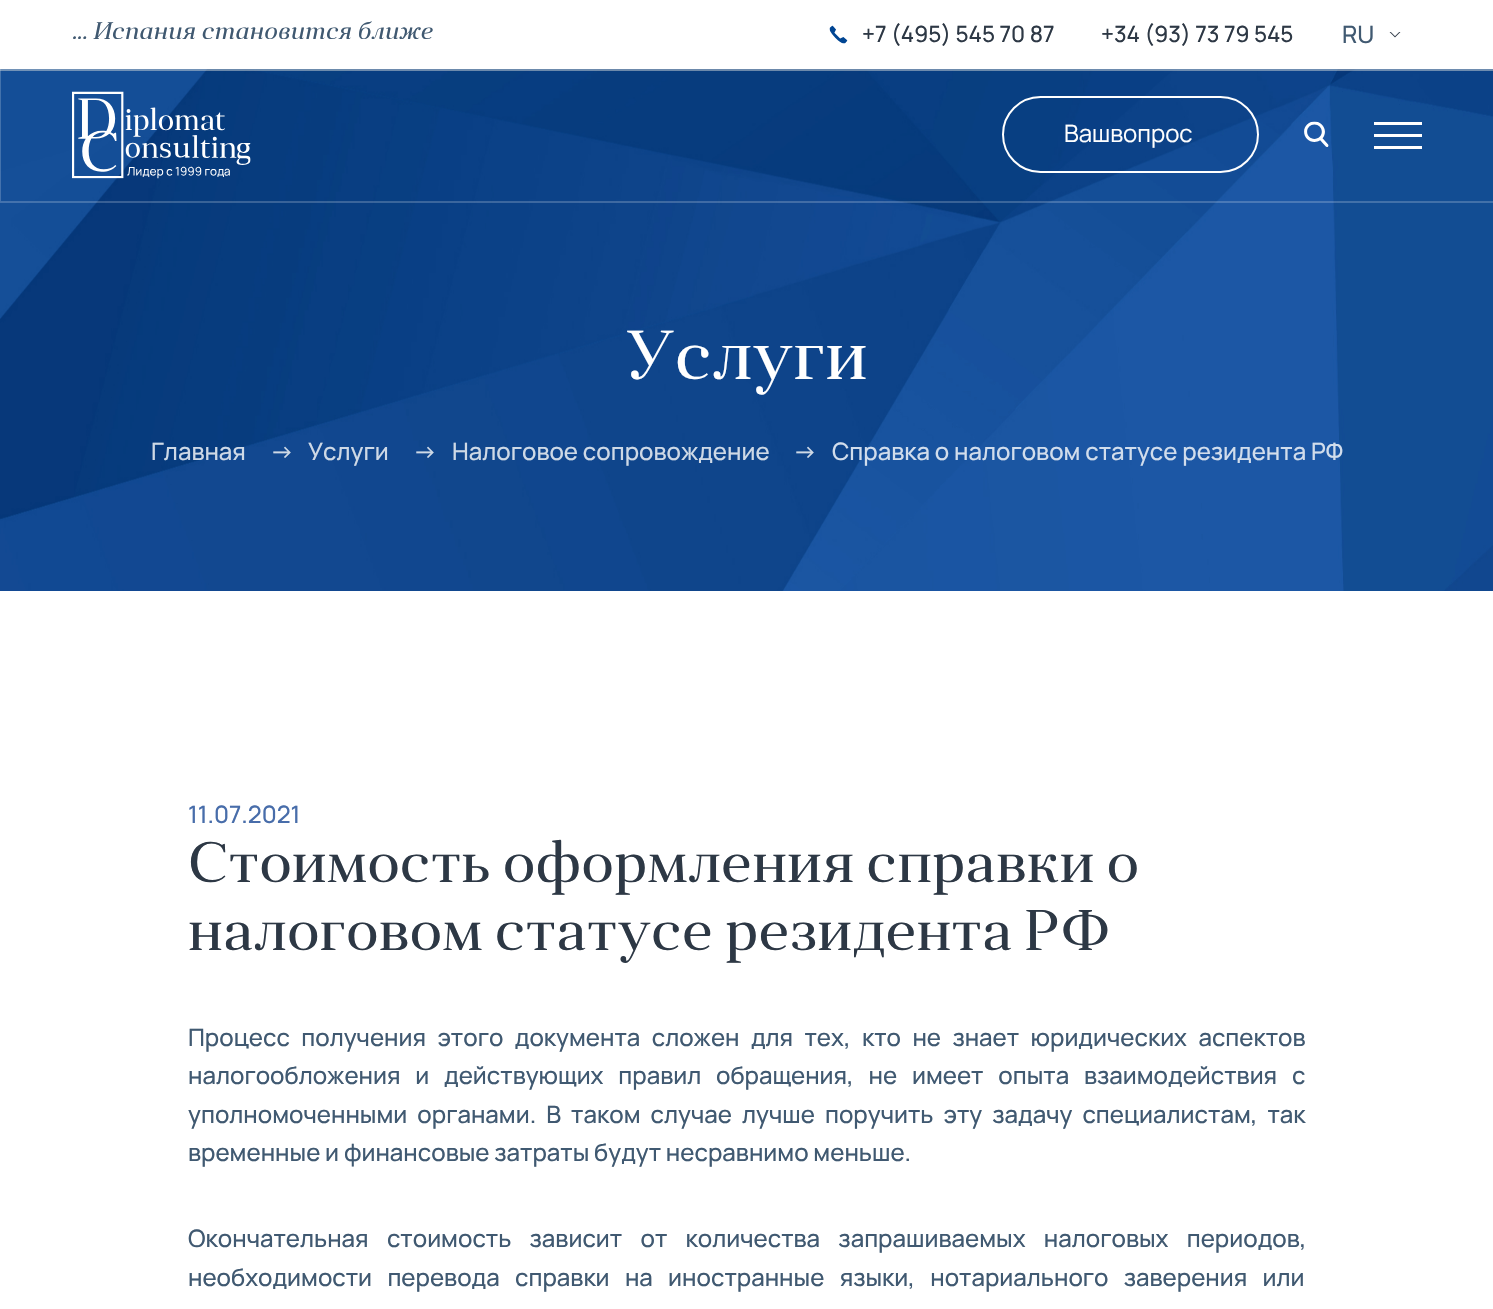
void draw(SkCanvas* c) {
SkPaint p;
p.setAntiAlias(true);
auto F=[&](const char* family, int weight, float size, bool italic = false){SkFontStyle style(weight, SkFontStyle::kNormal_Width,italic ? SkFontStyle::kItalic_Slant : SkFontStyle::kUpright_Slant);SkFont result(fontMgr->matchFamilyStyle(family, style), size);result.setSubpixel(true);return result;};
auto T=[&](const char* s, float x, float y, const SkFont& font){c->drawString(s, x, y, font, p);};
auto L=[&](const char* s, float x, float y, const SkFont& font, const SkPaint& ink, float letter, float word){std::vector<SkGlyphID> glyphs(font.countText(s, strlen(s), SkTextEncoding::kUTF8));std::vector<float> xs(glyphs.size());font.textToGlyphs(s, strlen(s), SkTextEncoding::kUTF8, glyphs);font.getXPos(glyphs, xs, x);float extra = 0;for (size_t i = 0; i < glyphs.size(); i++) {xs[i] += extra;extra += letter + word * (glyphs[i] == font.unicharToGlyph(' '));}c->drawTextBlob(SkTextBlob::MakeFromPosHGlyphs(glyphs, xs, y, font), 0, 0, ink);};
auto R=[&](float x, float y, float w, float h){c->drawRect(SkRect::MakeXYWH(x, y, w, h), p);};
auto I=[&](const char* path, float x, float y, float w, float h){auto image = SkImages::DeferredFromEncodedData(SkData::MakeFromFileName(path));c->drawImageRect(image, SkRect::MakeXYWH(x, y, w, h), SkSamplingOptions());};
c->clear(0xffffffff);
I("5.png",0,69,1493,522);
p.setStroke(true);
p.setStrokeWidth(2);
p.setColor(0x33ffffff);
c->drawRect(SkRect::MakeXYWH(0,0,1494,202),p);
p.setStroke(false);
p.setColor(0x80d0d5d8);
R(0,69,1493,2);
auto f1 = F("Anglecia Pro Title",400,24,true);
p.setColor(0xff405971);
L("... Испания становится ближе",72,39,f1,p,.5,0);
I("1.png",829,25,19,19);
auto f2 = F("Manrope",500,22.5);
p.setColor(0xff2d3845);
T("+7 (495) 545 70 87",862,42,f2);
T("+34 (93) 73 79 545",1101,42,f2);
auto f3 = F("Manrope",500,24);
p.setColor(0xff405971);
T("RU",1342,43,f3);
I("2.png",1389,32,12,6);
I("3.png",72,91,179,88);
p.setStroke(true);
p.setColor(0xffffffff);
c->drawRoundRect(SkRect::MakeXYWH(1003,97,255,75),37.5,37.5,p);
auto f4 = F("Manrope",200,24);
p.setStroke(false);
T("Ваш вопрос",1064,142,f4);
I("4.png",1304,121,25,26);
R(1374,134,48,3);
R(1374,122,48,3);
R(1374,146,48,3);
auto f5 = F("Anglecia Pro Title",400,69);
T("Услуги",626,379,f5);
p.setColor(0xffced9e6);
T("Главная",151,460,f3);
auto f6 = F("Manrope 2",500,24);
T("→",270,460,f6);
T("Услуги",308,460,f3);
T("→",413,460,f6);
T("Налоговое сопровождение",452,460,f3);
T("→",793,460,f6);
p.setColor(0xffd1ddec);
T("Справка о налоговом статусе резидента РФ",832,460,f3);
p.setColor(0xff486daa);
T("11.07.2021",188,823,f3);
auto f7 = F("Anglecia Pro Title",400,57);
p.setColor(0xff2d3845);
T("Стоимость оформления справки о",188,882,f7);
T("налоговом статусе резидента РФ",188,950,f7);
p.setColor(0xff405971);
L("Процесс получения этого документа сложен для тех, кто не знает юридических аспектов",188,1046,f3,p,0,6.6);
L("налогообложения и действующих правил обращения, не имеет опыта взаимодействия с",188,1084,f3,p,0,10);
L("уполномоченными органами. В таком случае лучше поручить эту задачу специалистам, так",188,1123,f3,p,0,5.25);
T("временные и финансовые затраты будут несравнимо меньше.",188,1161,f3);
L("Окончательная стоимость зависит от количества запрашиваемых налоговых периодов,",188,1247,f3,p,0,13.5);
L("необходимости перевода справки на иностранные языки, нотариального заверения или",188,1286,f3,p,0,10.5);
}
